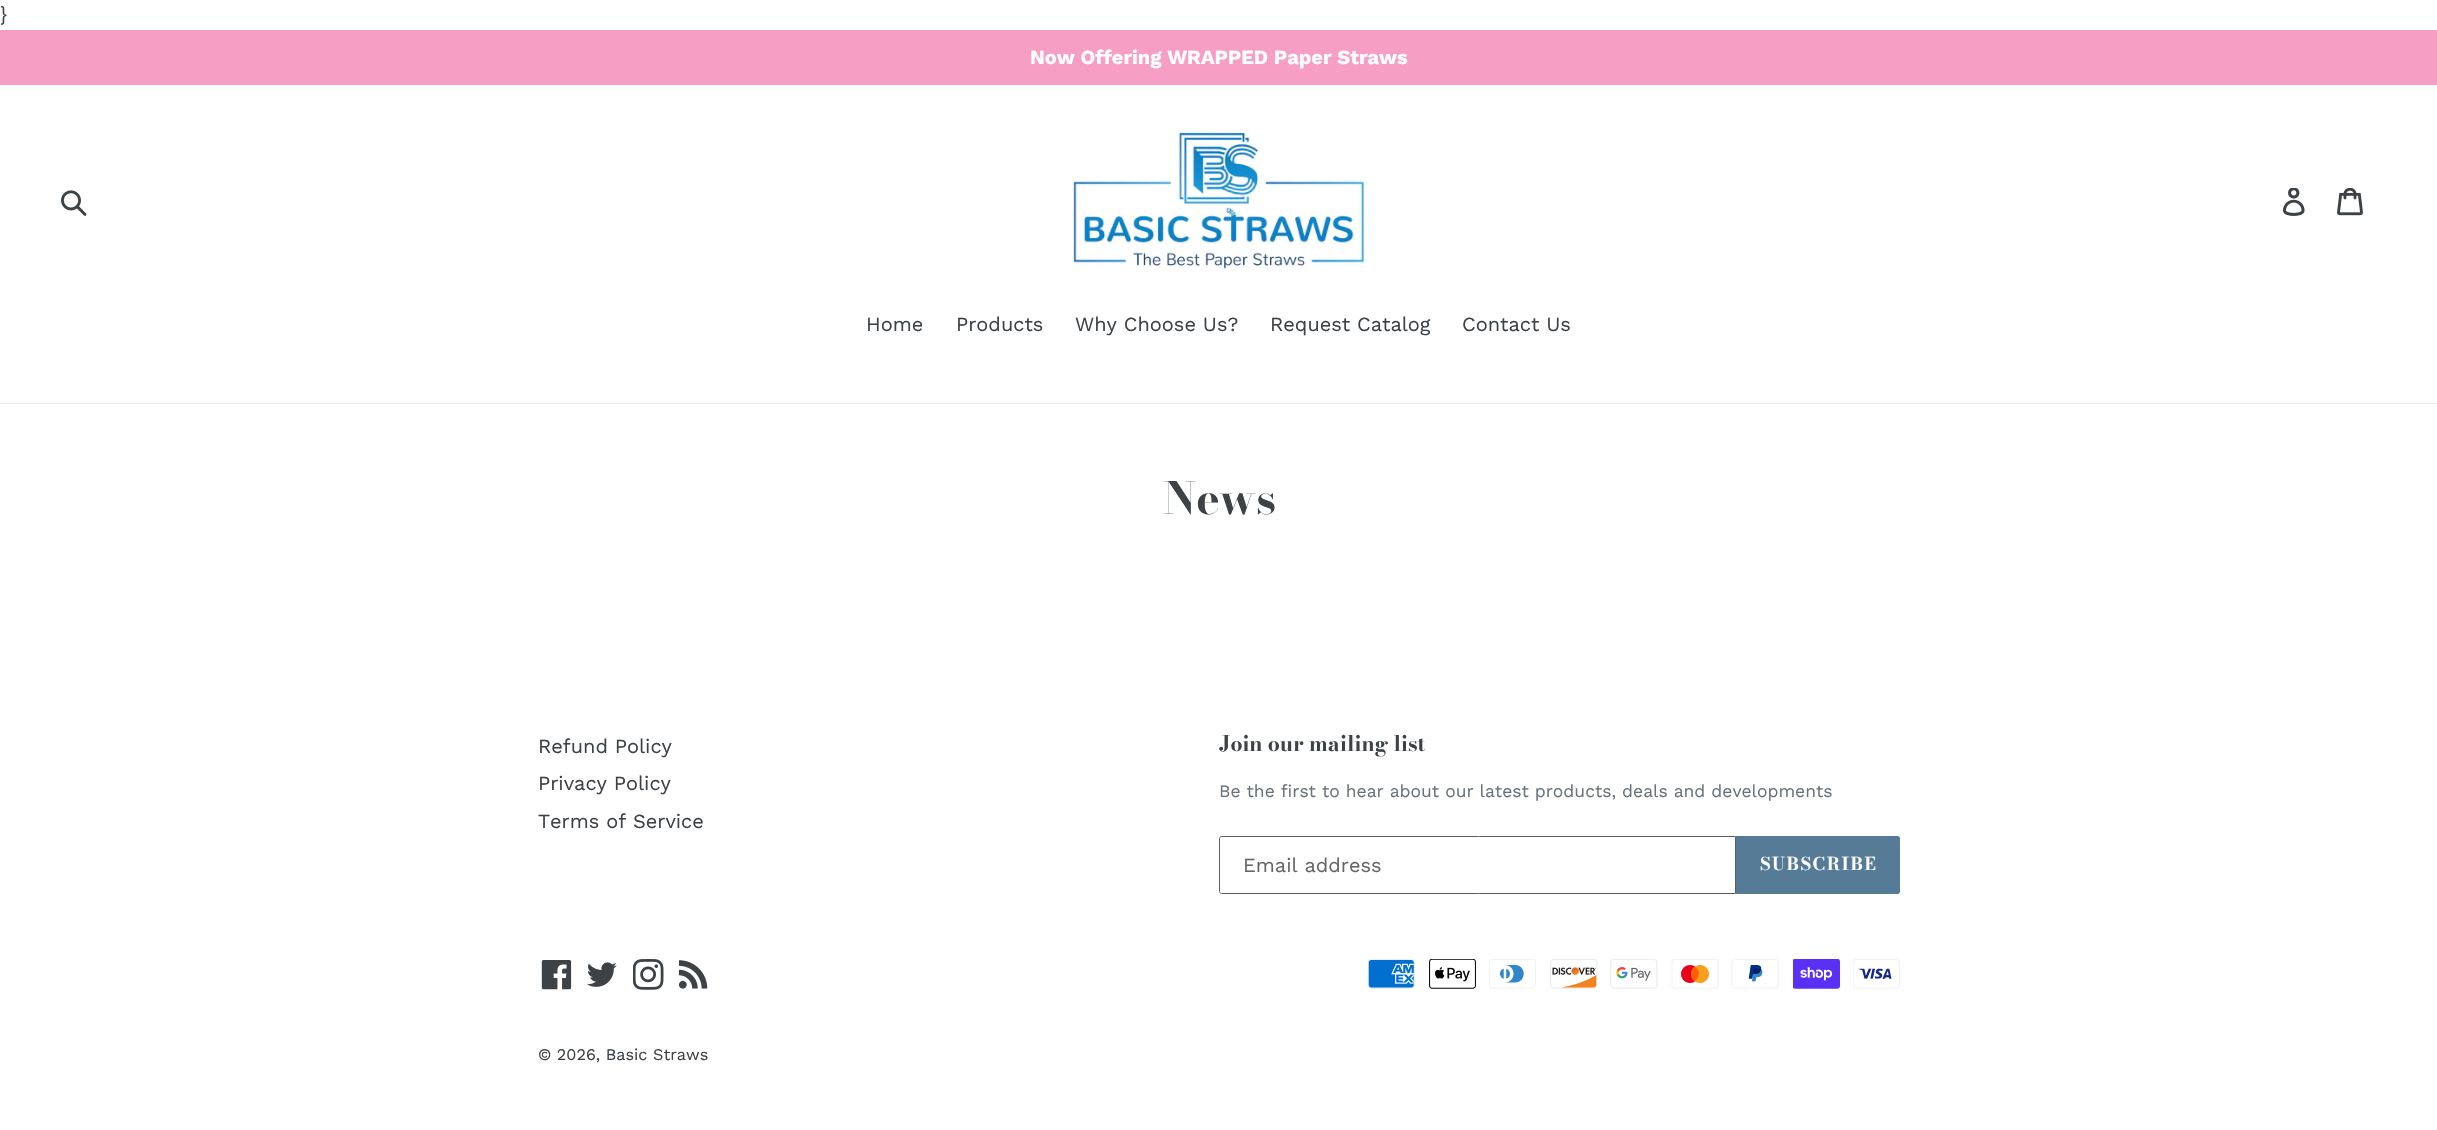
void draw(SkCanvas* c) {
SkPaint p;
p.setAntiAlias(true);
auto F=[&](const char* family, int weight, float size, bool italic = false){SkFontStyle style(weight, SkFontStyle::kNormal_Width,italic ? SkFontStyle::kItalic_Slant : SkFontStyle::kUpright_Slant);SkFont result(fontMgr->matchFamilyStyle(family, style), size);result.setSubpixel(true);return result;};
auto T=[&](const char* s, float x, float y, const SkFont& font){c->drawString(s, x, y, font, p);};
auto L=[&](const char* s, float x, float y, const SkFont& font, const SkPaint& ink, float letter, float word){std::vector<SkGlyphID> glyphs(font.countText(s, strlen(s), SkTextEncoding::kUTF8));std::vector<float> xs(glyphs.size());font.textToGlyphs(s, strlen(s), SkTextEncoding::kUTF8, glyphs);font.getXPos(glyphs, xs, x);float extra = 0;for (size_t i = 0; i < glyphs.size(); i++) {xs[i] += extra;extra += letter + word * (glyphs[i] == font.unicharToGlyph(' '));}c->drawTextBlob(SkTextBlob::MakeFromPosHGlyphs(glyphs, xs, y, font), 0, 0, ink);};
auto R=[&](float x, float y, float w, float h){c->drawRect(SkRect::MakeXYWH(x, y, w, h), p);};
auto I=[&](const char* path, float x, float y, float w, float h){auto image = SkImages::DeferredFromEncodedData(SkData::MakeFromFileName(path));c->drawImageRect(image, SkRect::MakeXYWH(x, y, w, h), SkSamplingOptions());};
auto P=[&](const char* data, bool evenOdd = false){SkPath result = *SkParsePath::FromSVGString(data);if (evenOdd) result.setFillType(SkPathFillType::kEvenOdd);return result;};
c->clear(0xffffffff);
auto f1 = F("Work Sans",400,20);
p.setColor(0xff3d4246);
T("}",0,21,f1);
p.setColor(0xfff79ec4);
R(0,30,2437,55);
auto f2 = F("Work Sans",700,20);
p.setColor(0xffffffff);
T("Now Offering WRAPPED Paper Straws",1030,64,f2);
I("1.png",61,190,26,26);
I("2.png",1071,129,297,140);
I("3.png",2282,188,23,28);
I("4.png",2337,188,26,28);
p.setColor(0xffe8e9eb);
R(0,403,2437,1);
p.setColor(0xff3d4246);
T("Home",866,331,f1);
T("Products",956,331,f1);
T("Why Choose Us?",1075,331,f1);
T("Request Catalog",1270,331,f1);
T("Contact Us",1462,331,f1);
auto f3 = F("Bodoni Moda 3",700,44);
T("News",1163,514,f3);
T("Refund Policy",538,753,f1);
T("Privacy Policy",538,790,f1);
T("Terms of Service",538,828,f1);
auto f4 = F("Bodoni Moda",700,21.25);
T("Join our mailing list",1219,751,f4);
auto f5 = F("Work Sans",400,17.5);
p.setColor(0xff69727b);
T("Be the first to hear about our latest products, deals and developments",1219,797,f5);
p.setStroke(true);
p.setStrokeWidth(1);
p.setColor(0xff5a5e62);
c->drawPath(P("M1221.5 836.5h514v57h-514c-1 0-2-1-2-2v-53c0-1 1-2 2-2z"),p);
p.setStroke(false);
p.setColor(0xff666666);
T("Email address",1243,872,f1);
p.setColor(0xff557b97);
c->drawPath(P("M1736 836h161.5c1.5 0 2.5 1 2.5 2.5v53c0 1.5-1 2.5-2.5 2.5h-161.5z"),p);
auto f6 = F("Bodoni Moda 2",700,17.5);
p.setColor(0xffffffff);
L("SUBSCRIBE",1760,870,f6,p,1.5,0);
I("5.png",541,960,31,30);
I("6.png",587,962,30,25);
I("7.png",633,959,31,31);
I("8.png",678,960,30,29);
I("9.png",1368,959,47,30);
I("10.png",1429,959,47,30);
I("11.png",1489,959,47,30);
I("12.png",1550,959,48,30);
I("13.png",1610,959,48,30);
I("14.png",1671,959,48,30);
I("15.png",1731,959,48,30);
I("16.png",1793,959,47,30);
I("17.png",1853,959,47,30);
auto f7 = F("Work Sans",400,16.25);
p.setColor(0xff3d4246);
T("© 2026, Basic Straws",538,1060,f7);
}
